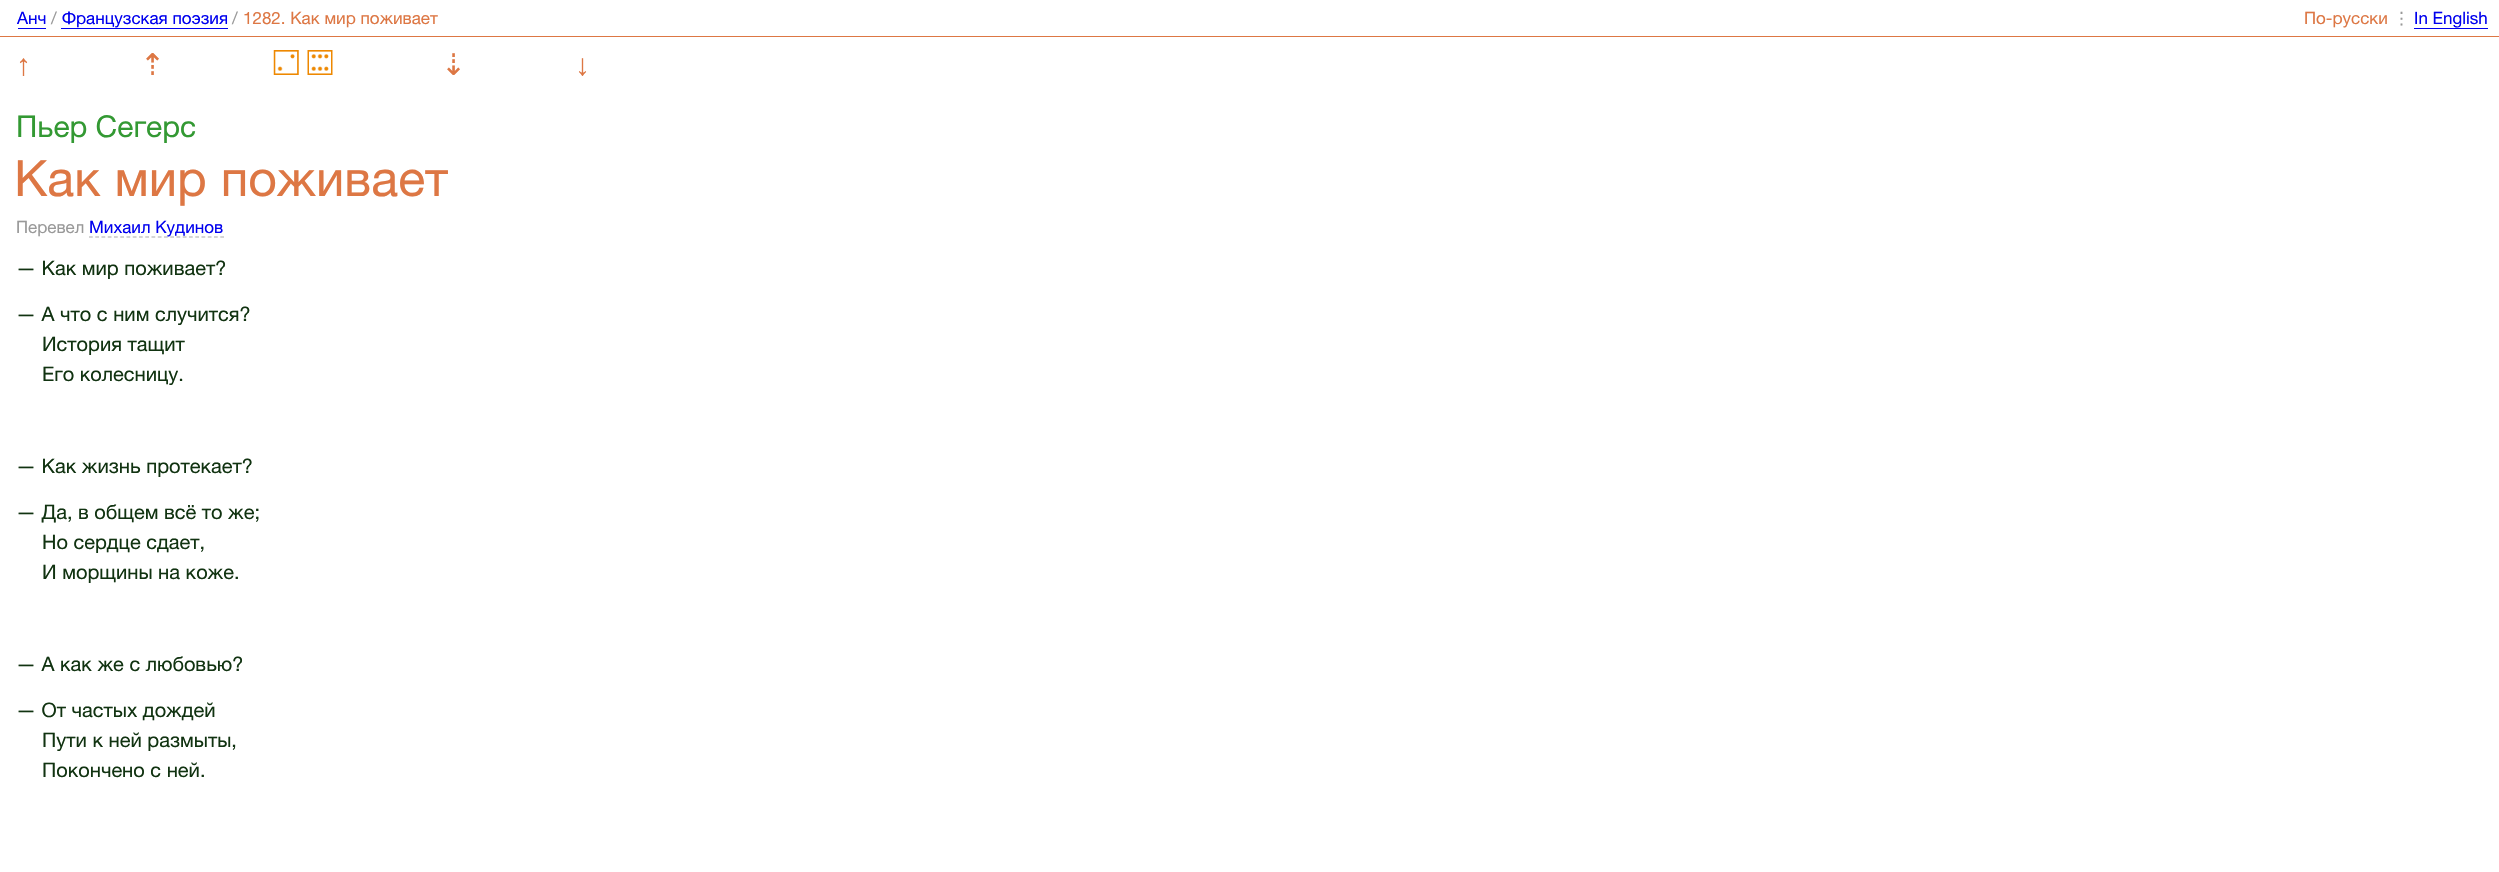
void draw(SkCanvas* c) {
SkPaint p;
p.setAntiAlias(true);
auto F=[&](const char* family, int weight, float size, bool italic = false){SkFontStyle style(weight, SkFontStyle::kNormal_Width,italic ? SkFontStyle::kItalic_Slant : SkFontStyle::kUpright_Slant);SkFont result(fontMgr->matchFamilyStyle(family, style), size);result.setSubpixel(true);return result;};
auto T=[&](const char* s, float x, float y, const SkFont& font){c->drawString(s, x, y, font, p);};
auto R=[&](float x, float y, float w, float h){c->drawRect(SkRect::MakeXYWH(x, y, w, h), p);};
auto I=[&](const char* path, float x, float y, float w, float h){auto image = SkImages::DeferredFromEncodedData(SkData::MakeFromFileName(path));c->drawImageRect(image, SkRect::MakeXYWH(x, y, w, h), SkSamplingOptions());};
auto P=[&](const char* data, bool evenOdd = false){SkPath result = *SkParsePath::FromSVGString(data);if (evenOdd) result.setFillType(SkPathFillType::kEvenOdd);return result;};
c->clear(0xffffffff);
p.setColor(0xffdd7744);
R(0,36,2499,1);
auto f1 = F("Helvetica Neue",400,17);
p.setColor(0xff0000ee);
T("Анч",17,24,f1);
R(18,28,28,1);
p.setColor(0xff999999);
T("/",51,24,f1);
p.setColor(0xff0000ee);
T("Французская поэзия",62,24,f1);
R(61,28,167,1);
p.setColor(0xff999999);
T("/",232,24,f1);
p.setColor(0xffdd7744);
T("1282. Как мир поживает",243,24,f1);
T("По-русски",2304,24,f1);
auto f2 = F("DejaVu Sans",400,17);
p.setColor(0xff999999);
T("⋮",2393,24,f2);
p.setColor(0xff0000ee);
T("In English",2414,24,f1);
R(2414,28,74,1);
auto f3 = F("Liberation Sans",400,30);
p.setColor(0xffdd7744);
T("↑",16,75,f3);
auto f4 = F("DejaVu Sans",400,30);
T("⇡",140,75,f4);
I("1.png",273,50,26,25);
I("2.png",307,50,26,25);
T("⇣",441,75,f4);
T("↓",575,75,f3);
auto f5 = F("Helvetica Neue",400,30);
p.setColor(0xff339933);
T("Пьер Сегерс",16,137,f5);
auto f6 = F("Helvetica Neue",400,50);
p.setColor(0xffdd7744);
T("Как мир поживает",14,196,f6);
p.setColor(0xff999999);
T("Перевел",16,233,f1);
p.setStroke(true);
p.setStrokeWidth(1.2);
p.setColor(0xffaaaaaa);
p.setPathEffect(SkDashPathEffect::Make({{3.75f,2.5f}}, 0));
c->drawPath(P("M89 237h135"),p);
p.setPathEffect(nullptr);
p.setStroke(false);
p.setColor(0xff0000ee);
T("Михаил Кудинов",89,233,f1);
auto f7 = F("Helvetica Neue",400,20);
p.setColor(0xff113311);
T("— Как мир поживает?",16,275,f7);
T("— А что с ним случится?",16,321,f7);
T("История тащит",42,351,f7);
T("Его колесницу.",42,381,f7);
T("— Как жизнь протекает?",16,473,f7);
T("— Да, в общем всё то же;",16,519,f7);
T("Но сердце сдает,",42,549,f7);
T("И морщины на коже.",42,579,f7);
T("— А как же с любовью?",16,671,f7);
T("— От частых дождей",16,717,f7);
T("Пути к ней размыты,",42,747,f7);
T("Покончено с ней.",42,777,f7);
}
